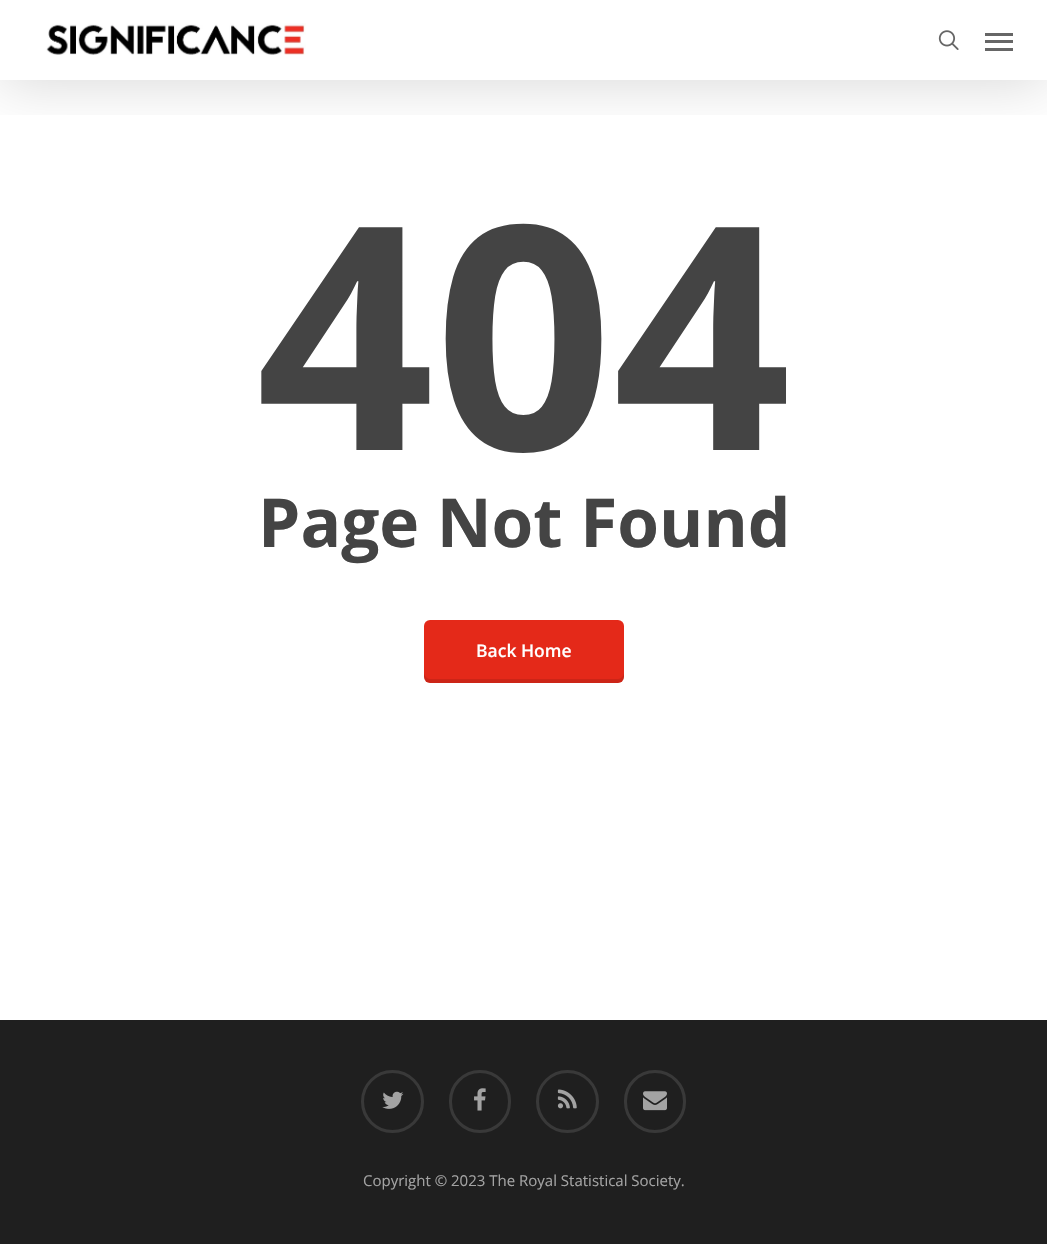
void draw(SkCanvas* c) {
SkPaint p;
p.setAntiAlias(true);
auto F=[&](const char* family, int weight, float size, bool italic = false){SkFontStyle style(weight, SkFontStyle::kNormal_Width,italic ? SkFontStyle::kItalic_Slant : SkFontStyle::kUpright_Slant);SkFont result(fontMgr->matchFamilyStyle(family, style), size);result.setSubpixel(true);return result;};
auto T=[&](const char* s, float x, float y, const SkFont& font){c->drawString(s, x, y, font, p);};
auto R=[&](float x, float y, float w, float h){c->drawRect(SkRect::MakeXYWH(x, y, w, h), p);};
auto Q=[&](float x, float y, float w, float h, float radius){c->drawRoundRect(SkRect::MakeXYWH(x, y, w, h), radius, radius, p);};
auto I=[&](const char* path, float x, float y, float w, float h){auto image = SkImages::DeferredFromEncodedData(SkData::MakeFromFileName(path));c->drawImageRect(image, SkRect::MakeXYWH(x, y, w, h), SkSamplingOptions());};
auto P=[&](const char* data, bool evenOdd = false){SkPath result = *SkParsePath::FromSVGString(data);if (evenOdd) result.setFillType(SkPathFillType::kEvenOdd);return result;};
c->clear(0xffffffff);
c->save();
c->clipRect(SkRect::MakeXYWH(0,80,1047,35));
p.setColor(0x26000000);
p.setMaskFilter(SkMaskFilter::MakeBlur(kNormal_SkBlurStyle, 28));
c->drawRect(SkRect::MakeXYWH(0,4,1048,80),p);
p.setMaskFilter(nullptr);
c->restore();
I("1.png",46,23,260,32);
I("2.png",938,30,21,20);
p.setColor(0xff666666);
R(985,33,28,3);
R(985,48,28,3);
R(985,40,28,3);
auto f1 = F("Open Sans",700,312);
p.setColor(0xff444444);
T("404",256,450,f1);
auto f2 = F("Open Sans",700,67.5);
T("Page Not Found",258,547,f2);
p.setColor(0xffe42919);
Q(424,620,200,63,6);
p.setColor(0x1a000000);
c->drawPath(P("M424 672v5c0 3 3 6 6 6h188c3 0 6-3 6-6v-5c0 4-3 7-6 7h-188c-3 0-6-3-6-7z"),p);
auto f3 = F("Open Sans",600,17.5);
p.setColor(0xffffffff);
T("Back Home",476,657,f3);
p.setColor(0xff1f1f1f);
R(0,1020,1047,224);
I("3.png",382,1091,22,18);
p.setStroke(true);
p.setStrokeWidth(3);
p.setColor(0xff393939);
c->drawCircle(392.5,1101.5,30,p);
I("4.png",474,1088,12,23);
c->drawRoundRect(SkRect::MakeXYWH(450.5,1071.5,59,60),29.5,29.5,p);
I("5.png",557,1089,20,20);
c->drawCircle(567.5,1101.5,30,p);
I("6.png",643,1091,24,20);
c->drawRoundRect(SkRect::MakeXYWH(625.5,1071.5,59,60),29.5,29.5,p);
auto f4 = F("Open Sans",400,15);
p.setStroke(false);
p.setColor(0xffa3a3a3);
T("Copyright © 2023 The Royal Statistical Society.",363,1186,f4);
}
